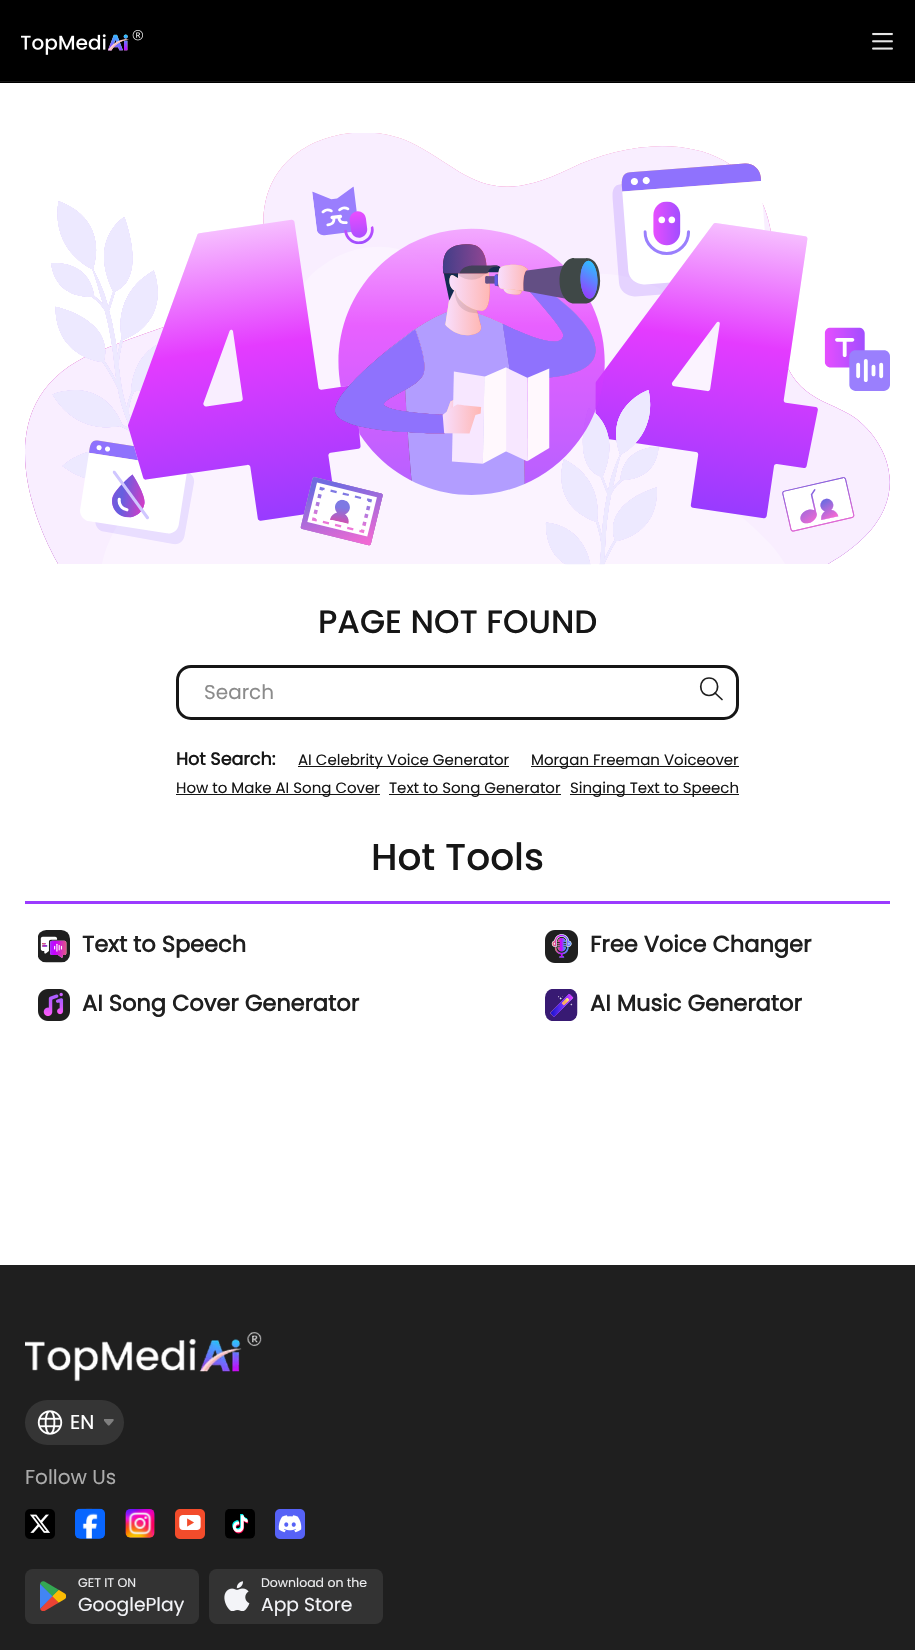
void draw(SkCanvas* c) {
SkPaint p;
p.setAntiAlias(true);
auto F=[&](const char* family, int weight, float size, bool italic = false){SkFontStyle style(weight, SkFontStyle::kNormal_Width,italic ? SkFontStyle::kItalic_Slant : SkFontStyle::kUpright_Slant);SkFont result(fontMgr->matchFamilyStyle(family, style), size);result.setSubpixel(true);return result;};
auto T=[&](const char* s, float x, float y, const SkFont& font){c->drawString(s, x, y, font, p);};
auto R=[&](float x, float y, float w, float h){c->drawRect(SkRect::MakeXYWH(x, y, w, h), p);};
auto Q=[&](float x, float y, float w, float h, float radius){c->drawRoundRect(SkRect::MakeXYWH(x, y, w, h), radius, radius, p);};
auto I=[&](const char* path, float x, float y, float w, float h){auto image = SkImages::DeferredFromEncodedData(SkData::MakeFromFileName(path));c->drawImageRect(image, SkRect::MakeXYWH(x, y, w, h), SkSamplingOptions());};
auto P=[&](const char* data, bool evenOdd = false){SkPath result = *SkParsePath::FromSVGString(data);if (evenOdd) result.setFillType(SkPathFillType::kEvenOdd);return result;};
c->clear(0xffffffff);
p.setColor(0xff000000);
R(0,0,915,83);
p.setColor(0xff161616);
R(0,81,915,1);
I("1.png",21,30,122,25);
I("2.png",872,32,21,18);
I("3.png",25,133,865,432);
auto f1 = F("Poppins",500,32.5);
T("PAGE NOT FOUND",318,633,f1);
p.setStroke(true);
p.setStrokeWidth(3);
c->drawRoundRect(SkRect::MakeXYWH(177.5,666.5,560,52),13.5,13.5,p);
auto f2 = F("Poppins",400,20);
p.setStroke(false);
p.setColor(0xff8b8b8b);
T("Search",204,699,f2);
p.setStroke(true);
p.setStrokeWidth(1.7);
p.setStrokeJoin(SkPaint::kRound_Join);
p.setColor(0xff1f1f1f);
c->drawPath(P("M709 695.5c11.5 0 11.5-17.5 0-17.5c-11 0-11 17.5 0 17.5z"),p);
p.setStrokeCap(SkPaint::kRound_Cap);
c->drawPath(P("M715 693l7 6.5"),p);
auto f3 = F("Poppins",700,17.5);
p.setStroke(false);
p.setColor(0xff161616);
T("Hot Search:",176,765,f3);
R(298,766,211,1);
auto f4 = F("Poppins",400,15);
T("AI Celebrity Voice Generator",298,765,f4);
R(531,766,208,1);
T("Morgan Freeman Voiceover",531,765,f4);
R(176,794,204,1);
T("How to Make AI Song Cover",176,793,f4);
R(389,794,172,1);
T("Text to Song Generator",389,793,f4);
R(570,794,169,1);
T("Singing Text to Speech",570,793,f4);
auto f5 = F("Poppins",500,37.5);
T("Hot Tools",371,870,f5);
p.setColor(0xff9b3bff);
R(25,901,865,3);
I("4.png",38,930,32,33);
auto f6 = F("Poppins",700,22.5);
p.setColor(0xff1f1f1f);
T("Text to Speech",82,952,f6);
I("5.png",545,930,33,33);
T("Free Voice Changer",590,952,f6);
I("6.png",38,989,32,32);
T("AI Song Cover Generator",82,1011,f6);
I("7.png",545,989,33,32);
T("AI Music Generator",590,1011,f6);
R(0,1265,915,385);
I("8.png",25,1332,237,50);
p.setColor(0xff353535);
Q(25,1400,99,45,22.5);
I("9.png",37,1410,26,25);
p.setColor(0xffffffff);
T("EN",70,1429,f2);
I("10.png",104,1419,10,7);
p.setColor(0xffababab);
T("Follow Us",25,1484,f2);
I("11.png",25,1509,30,30);
I("12.png",75,1508,30,31);
I("13.png",125,1509,30,29);
I("14.png",175,1509,30,30);
I("15.png",225,1509,30,30);
I("16.png",275,1509,30,30);
p.setColor(0xff333333);
Q(25,1569,174,55,8);
I("17.png",40,1581,26,30);
auto f7 = F("Poppins",400,12.5);
p.setColor(0xffebecee);
T("GET IT ON",78,1587,f7);
auto f8 = F("Poppins",400,18.75);
p.setColor(0xfff3f4f8);
T("GooglePlay",78,1611,f8);
p.setColor(0xff333333);
Q(209,1569,174,55,8);
I("18.png",224,1581,26,30);
p.setColor(0xffebecee);
T("Download on the",261,1587,f7);
p.setColor(0xfff3f4f8);
T("App Store",261,1611,f8);
}
